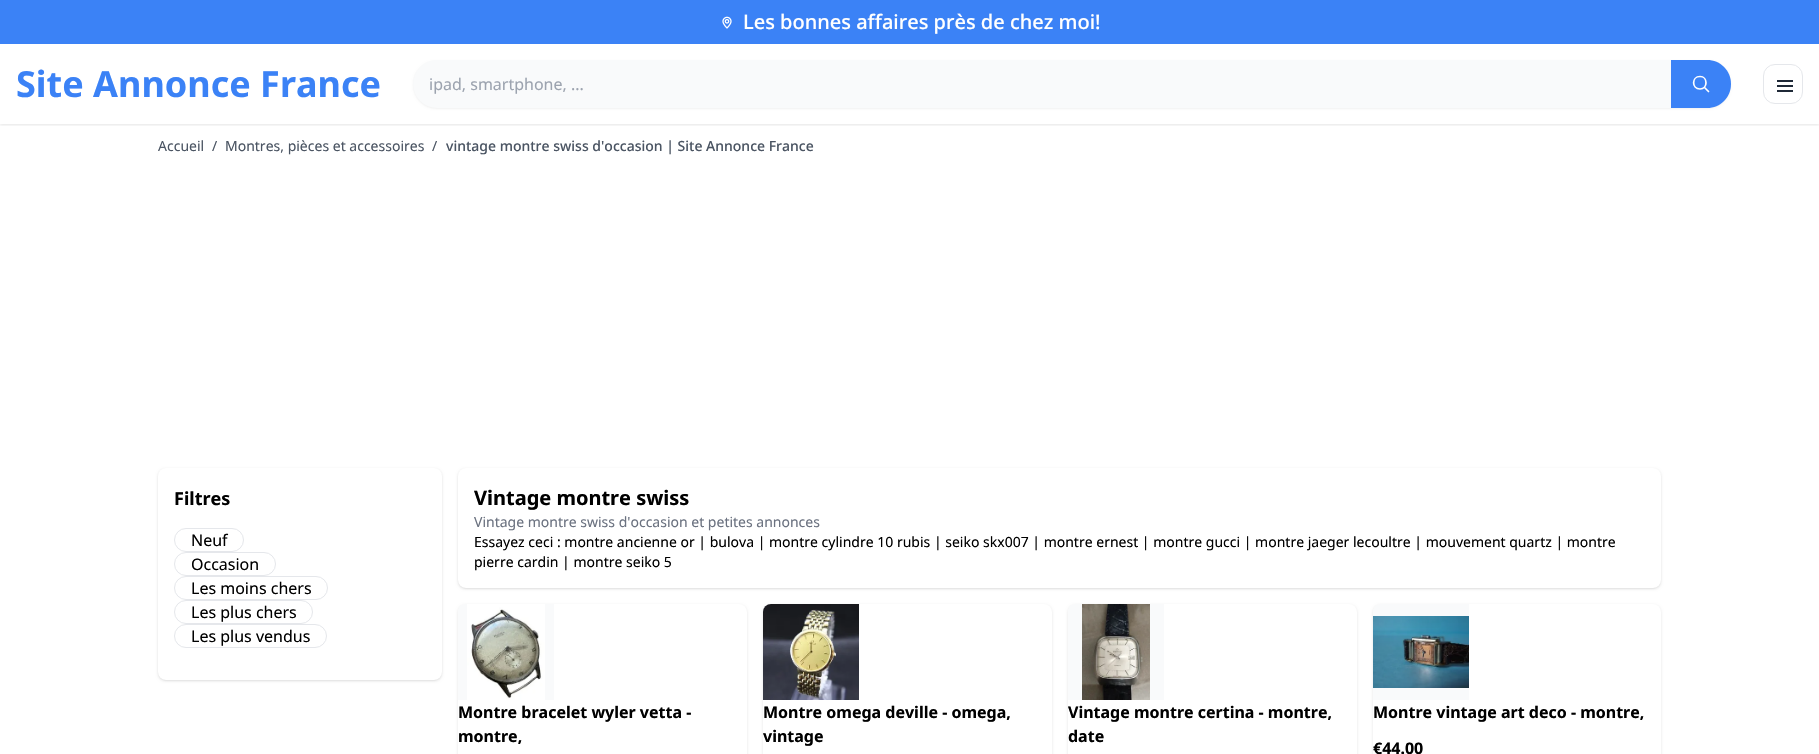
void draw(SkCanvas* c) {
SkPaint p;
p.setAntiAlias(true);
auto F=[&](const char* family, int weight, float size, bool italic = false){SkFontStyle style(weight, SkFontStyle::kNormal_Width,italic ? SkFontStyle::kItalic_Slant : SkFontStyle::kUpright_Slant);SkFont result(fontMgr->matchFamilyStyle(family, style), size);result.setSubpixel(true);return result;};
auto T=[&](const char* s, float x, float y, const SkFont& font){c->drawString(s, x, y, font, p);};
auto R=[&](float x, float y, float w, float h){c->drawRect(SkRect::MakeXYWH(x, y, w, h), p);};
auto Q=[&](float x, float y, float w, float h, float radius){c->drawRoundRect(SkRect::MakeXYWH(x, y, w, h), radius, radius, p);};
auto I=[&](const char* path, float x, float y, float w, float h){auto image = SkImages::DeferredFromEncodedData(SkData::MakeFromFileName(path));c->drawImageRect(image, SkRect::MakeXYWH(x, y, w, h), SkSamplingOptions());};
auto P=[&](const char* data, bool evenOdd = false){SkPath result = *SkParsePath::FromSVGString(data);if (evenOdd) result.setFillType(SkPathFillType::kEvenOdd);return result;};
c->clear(0xffffffff);
c->save();
c->clipRect(SkRect::MakeXYWH(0,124,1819,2));
p.setColor(0x1a000000);
p.setMaskFilter(SkMaskFilter::MakeBlur(kNormal_SkBlurStyle, 1.5));
c->drawRect(SkRect::MakeXYWH(0,1,1819,124),p);
p.setMaskFilter(nullptr);
c->restore();
p.setColor(0xff3b82f6);
R(0,0,1819,44);
I("1.png",722,16,10,13);
auto f1 = F("Noto Sans",500,20);
p.setColor(0xffffffff);
T("Les bonnes affaires près de chez moi!",743,29,f1);
auto f2 = F("Noto Sans",700,36);
p.setColor(0xff3b82f6);
T("Site Annonce France",16,97,f2);
p.setColor(0x0d000000);
p.setMaskFilter(SkMaskFilter::MakeBlur(kNormal_SkBlurStyle, 1));
c->drawRoundRect(SkRect::MakeXYWH(413,61,1318,48),24,24,p);
p.setMaskFilter(nullptr);
p.setColor(0xfff9fafb);
Q(413,60,1318,48,24);
auto f3 = F("Noto Sans",400,16);
p.setColor(0xff9ca3af);
T("ipad, smartphone, ...",429,90,f3);
p.setColor(0xff3b82f6);
c->drawPath(P("M1671 60h36c13.5 0 24 10.5 24 24c0 13.5-10.5 24-24 24h-36z"),p);
p.setStroke(true);
p.setStrokeWidth(1.7);
p.setStrokeCap(SkPaint::kRound_Cap);
p.setStrokeJoin(SkPaint::kRound_Join);
p.setColor(0xffffffff);
c->drawPath(P("M1708.5 91.5l-3.5-3.5m-5 1c-8.5 0-8.5-12.5 0-12.5c8 0 8 12.5 0 12.5z"),p);
p.setStrokeWidth(1);
p.setStrokeCap(SkPaint::kButt_Cap);
p.setStrokeJoin(SkPaint::kMiter_Join);
p.setColor(0xffe5e7eb);
c->drawRoundRect(SkRect::MakeXYWH(1763.5,64.5,39,39),11.5,11.5,p);
p.setStrokeWidth(2);
p.setColor(0xff1f2937);
c->drawPath(P("M1777 81h16m-16 5h16m-16 5h16"),p);
auto f4 = F("Noto Sans",400,14);
p.setStroke(false);
p.setColor(0xff4b5563);
T("Accueil",158,151,f4);
T("/",212,151,f4);
T("Montres, pièces et accessoires",225,151,f4);
T("/",432,151,f4);
auto f5 = F("Noto Sans",500,14);
T("vintage montre swiss d'occasion | Site Annonce France",446,151,f5);
p.setColor(0x1a000000);
p.setMaskFilter(SkMaskFilter::MakeBlur(kNormal_SkBlurStyle, 1));
c->drawRoundRect(SkRect::MakeXYWH(159,470,282,210),7,7,p);
p.setMaskFilter(nullptr);
p.setMaskFilter(SkMaskFilter::MakeBlur(kNormal_SkBlurStyle, 1.5));
c->drawRoundRect(SkRect::MakeXYWH(158,469,284,212),8,8,p);
p.setMaskFilter(nullptr);
p.setColor(0xffffffff);
Q(158,468,284,212,8);
auto f6 = F("Noto Sans",700,18);
p.setColor(0xff000000);
T("Filtres",174,505,f6);
p.setStroke(true);
p.setStrokeWidth(1);
p.setColor(0xffe5e7eb);
c->drawRoundRect(SkRect::MakeXYWH(174.5,528.5,69,23),11.5,11.5,p);
p.setStroke(false);
p.setColor(0xff000000);
T("Neuf",191,546,f3);
p.setStroke(true);
p.setColor(0xffe5e7eb);
c->drawRoundRect(SkRect::MakeXYWH(174.5,552.5,101,23),11.5,11.5,p);
p.setStroke(false);
p.setColor(0xff000000);
T("Occasion",191,570,f3);
p.setStroke(true);
p.setColor(0xffe5e7eb);
c->drawRoundRect(SkRect::MakeXYWH(174.5,576.5,153,23),11.5,11.5,p);
p.setStroke(false);
p.setColor(0xff000000);
T("Les moins chers",191,594,f3);
p.setStroke(true);
p.setColor(0xffe5e7eb);
c->drawRoundRect(SkRect::MakeXYWH(174.5,600.5,138,23),11.5,11.5,p);
p.setStroke(false);
p.setColor(0xff000000);
T("Les plus chers",191,618,f3);
p.setStroke(true);
p.setColor(0xffe5e7eb);
c->drawRoundRect(SkRect::MakeXYWH(174.5,624.5,152,23),11.5,11.5,p);
p.setStroke(false);
p.setColor(0xff000000);
T("Les plus vendus",191,642,f3);
p.setColor(0x1a000000);
p.setMaskFilter(SkMaskFilter::MakeBlur(kNormal_SkBlurStyle, 1));
c->drawRoundRect(SkRect::MakeXYWH(459,470,1201,118),7,7,p);
p.setMaskFilter(nullptr);
p.setMaskFilter(SkMaskFilter::MakeBlur(kNormal_SkBlurStyle, 1.5));
c->drawRoundRect(SkRect::MakeXYWH(458,469,1203,120),8,8,p);
p.setMaskFilter(nullptr);
p.setColor(0xffffffff);
Q(458,468,1203,120,8);
auto f7 = F("Noto Sans",700,20);
p.setColor(0xff000000);
T("Vintage montre swiss",474,505,f7);
p.setColor(0xff6b7280);
T("Vintage montre swiss d'occasion et petites annonces",474,527,f4);
p.setColor(0xff000000);
T("Essayez ceci : montre ancienne or | bulova | montre cylindre 10 rubis | seiko skx007 | montre ernest | montre gucci | montre jaeger lecoultre | mouvement quartz | montre",474,547,f4);
T("pierre cardin | montre seiko 5",474,567,f4);
p.setColor(0x1a000000);
p.setMaskFilter(SkMaskFilter::MakeBlur(kNormal_SkBlurStyle, 1.5));
c->drawRoundRect(SkRect::MakeXYWH(458,605,289,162),8,8,p);
p.setMaskFilter(nullptr);
p.setColor(0xffffffff);
Q(458,604,289,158,8);
p.setColor(0xfff9fafb);
c->drawPath(P("M466 604h88v96h-96v-88c0-4.5 3.5-8 8-8z"),p);
I("2.png",467,604,78,96);
auto f8 = F("Noto Sans",700,16);
p.setColor(0xff000000);
T("Montre bracelet wyler vetta -",458,718,f8);
T("montre,",458,742,f8);
p.setColor(0x1a000000);
p.setMaskFilter(SkMaskFilter::MakeBlur(kNormal_SkBlurStyle, 1.5));
c->drawRoundRect(SkRect::MakeXYWH(763,605,289,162),8,8,p);
p.setMaskFilter(nullptr);
p.setColor(0xffffffff);
Q(763,604,289,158,8);
I("3.png",763,604,96,96);
p.setColor(0xff000000);
T("Montre omega deville - omega,",763,718,f8);
T("vintage",763,742,f8);
p.setColor(0x1a000000);
p.setMaskFilter(SkMaskFilter::MakeBlur(kNormal_SkBlurStyle, 1.5));
c->drawRoundRect(SkRect::MakeXYWH(1068,605,289,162),8,8,p);
p.setMaskFilter(nullptr);
p.setColor(0xffffffff);
Q(1068,604,289,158,8);
p.setColor(0xfff9fafb);
c->drawPath(P("M1076 604h88v96h-96v-88c0-4.5 3.5-8 8-8z"),p);
I("4.png",1082,604,68,96);
p.setColor(0xff000000);
T("Vintage montre certina - montre,",1068,718,f8);
T("date",1068,742,f8);
p.setColor(0x1a000000);
p.setMaskFilter(SkMaskFilter::MakeBlur(kNormal_SkBlurStyle, 1.5));
c->drawRoundRect(SkRect::MakeXYWH(1373,605,288,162),8,8,p);
p.setMaskFilter(nullptr);
p.setColor(0xffffffff);
Q(1373,604,288,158,8);
p.setColor(0xfff9fafb);
c->drawPath(P("M1381 604h88v96h-96v-88c0-4.5 3.5-8 8-8z"),p);
I("5.png",1373,616,96,72);
p.setColor(0xff000000);
T("Montre vintage art deco - montre,",1373,718,f8);
T("€44.00",1373,754,f8);
}
